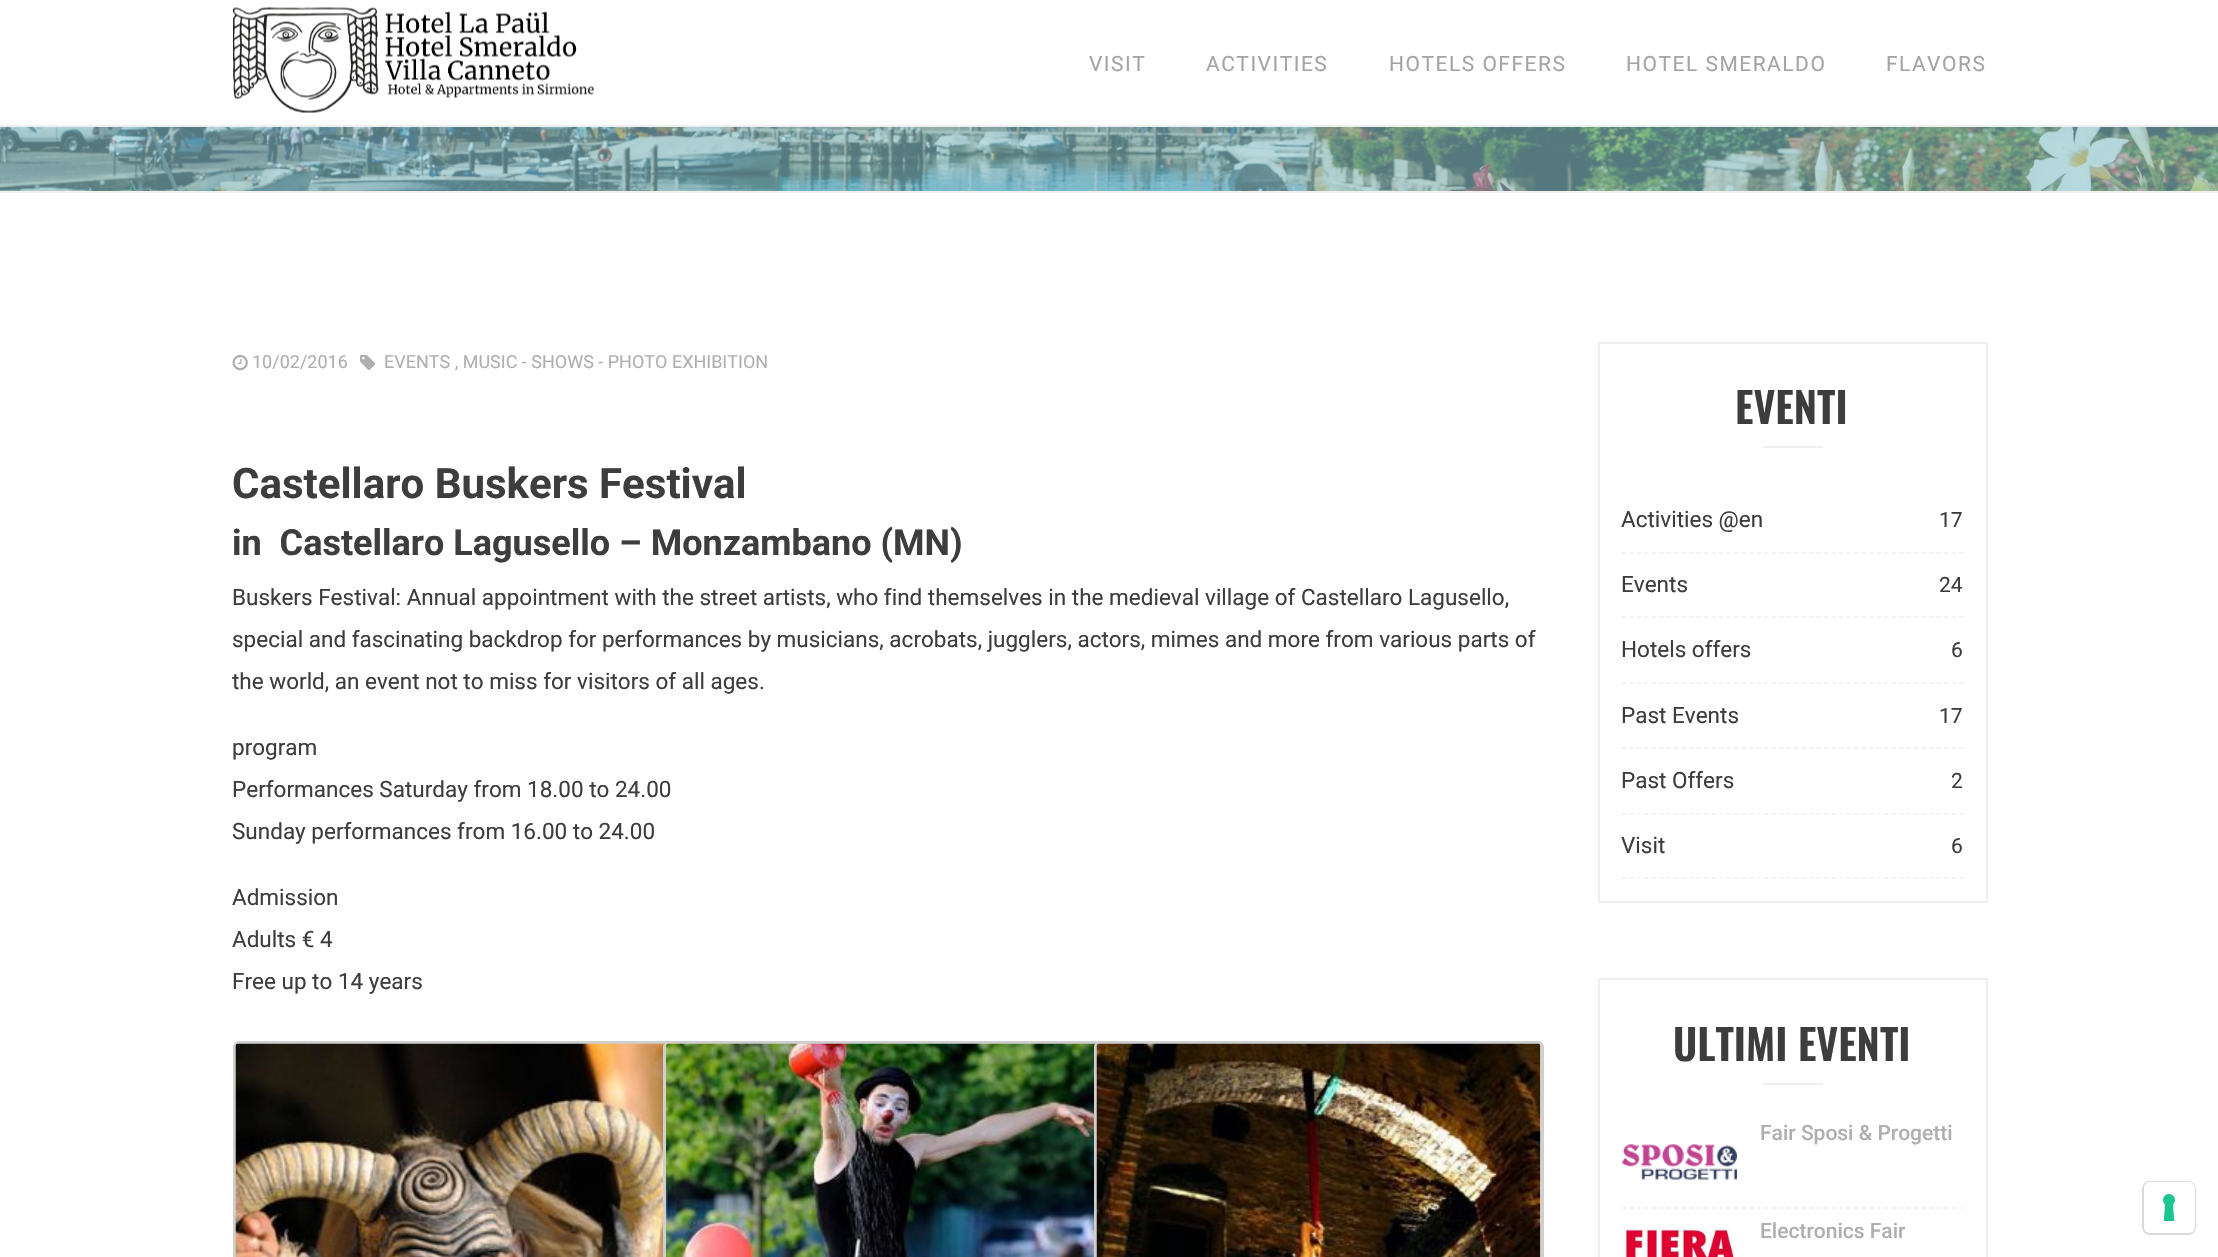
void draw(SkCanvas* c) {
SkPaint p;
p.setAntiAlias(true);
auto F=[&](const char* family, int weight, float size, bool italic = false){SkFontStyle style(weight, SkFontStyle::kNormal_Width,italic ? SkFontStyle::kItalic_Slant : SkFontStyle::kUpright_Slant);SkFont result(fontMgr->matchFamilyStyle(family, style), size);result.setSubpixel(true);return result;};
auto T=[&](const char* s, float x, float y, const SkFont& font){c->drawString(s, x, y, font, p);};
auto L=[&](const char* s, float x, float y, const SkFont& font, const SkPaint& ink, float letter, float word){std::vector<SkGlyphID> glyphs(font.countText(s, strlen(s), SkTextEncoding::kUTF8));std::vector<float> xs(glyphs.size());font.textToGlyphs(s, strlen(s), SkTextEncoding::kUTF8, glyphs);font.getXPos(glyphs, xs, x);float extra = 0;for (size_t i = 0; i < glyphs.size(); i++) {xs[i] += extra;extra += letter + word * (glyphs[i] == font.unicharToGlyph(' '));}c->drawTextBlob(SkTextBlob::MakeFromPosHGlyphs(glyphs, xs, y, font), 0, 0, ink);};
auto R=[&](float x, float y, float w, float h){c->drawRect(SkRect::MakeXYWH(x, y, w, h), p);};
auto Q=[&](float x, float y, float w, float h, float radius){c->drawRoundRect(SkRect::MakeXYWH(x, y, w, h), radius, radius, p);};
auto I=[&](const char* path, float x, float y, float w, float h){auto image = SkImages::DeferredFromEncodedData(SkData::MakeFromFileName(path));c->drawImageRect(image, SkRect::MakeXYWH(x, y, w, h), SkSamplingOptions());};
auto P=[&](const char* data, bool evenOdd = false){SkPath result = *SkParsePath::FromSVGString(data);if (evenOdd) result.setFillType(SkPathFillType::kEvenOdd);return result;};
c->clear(0xffffffff);
p.setColor(0xffefefef);
R(0,125,2218,2);
I("1.png",233,7,361,106);
auto f1 = F("Roboto",400,21);
p.setColor(0xffa4a4a4);
L("VISIT",1089,71,f1,p,1.5,0);
L("ACTIVITIES",1206,71,f1,p,1.5,0);
L("HOTELS OFFERS",1389,71,f1,p,1.5,0);
L("HOTEL SMERALDO",1626,71,f1,p,1.5,0);
L("FLAVORS",1886,71,f1,p,1.5,0);
I("2.png",0,127,2218,64);
p.setColor(0xfff1f0ed);
R(0,191,2218,2);
I("3.png",232,354,16,17);
auto f2 = F("Roboto",400,18);
p.setColor(0xffafafaf);
T("10/02/2016",252,368,f2);
I("4.png",360,354,16,16);
T("EVENTS , MUSIC - SHOWS - PHOTO EXHIBITION",384,368,f2);
auto f3 = F("Roboto",700,42);
p.setColor(0xff3c3d3c);
T("Castellaro Buskers Festival",232,498,f3);
auto f4 = F("Roboto",700,36);
T("in  Castellaro Lagusello – Monzambano (MN)",232,555,f4);
auto f5 = F("Roboto",400,22.5);
T("Buskers Festival: Annual appointment with the street artists, who find themselves in the medieval village of Castellaro Lagusello,",232,605,f5);
T("special and fascinating backdrop for performances by musicians, acrobats, jugglers, actors, mimes and more from various parts of",232,647,f5);
T("the world, an event not to miss for visitors of all ages.",232,689,f5);
T("program",232,755,f5);
T("Performances Saturday from 18.00 to 24.00",232,797,f5);
T("Sunday performances from 16.00 to 24.00",232,839,f5);
T("Admission",232,905,f5);
T("Adults € 4",232,947,f5);
T("Free up to 14 years",232,989,f5);
p.setStroke(true);
p.setStrokeWidth(3);
p.setColor(0xffcfcfcf);
c->drawRoundRect(SkRect::MakeXYWH(234.5,1042.5,447,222),4.5,4.5,p);
I("5.png",235,1043,432,214);
c->drawRoundRect(SkRect::MakeXYWH(664.5,1042.5,447,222),4.5,4.5,p);
I("6.png",666,1043,432,214);
c->drawRoundRect(SkRect::MakeXYWH(1095.5,1042.5,447,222),4.5,4.5,p);
I("7.png",1096,1043,445,214);
p.setStrokeWidth(2);
p.setColor(0xffefefef);
c->drawRect(SkRect::MakeXYWH(1599,343,388,559),p);
auto f6 = F("Oswald",600,42);
p.setStroke(false);
p.setColor(0xff3c3d3c);
T("EVENTI",1735,424,f6);
p.setColor(0xffefefef);
R(1763,446,60,2);
p.setStroke(true);
p.setStrokeWidth(1.5);
p.setPathEffect(SkDashPathEffect::Make({{4.5f,3}}, 0));
c->drawPath(P("M1621.5 553h342"),p);
p.setPathEffect(nullptr);
p.setStroke(false);
p.setColor(0xff3c3d3c);
T("Activities @en",1621,527,f5);
T("17",1939,527,f1);
p.setStroke(true);
p.setColor(0xffefefef);
p.setPathEffect(SkDashPathEffect::Make({{4.5f,3}}, 0));
c->drawPath(P("M1621.5 617h342"),p);
p.setPathEffect(nullptr);
p.setStroke(false);
p.setColor(0xff3c3d3c);
T("Events",1621,592,f5);
T("24",1939,592,f1);
p.setStroke(true);
p.setColor(0xffefefef);
p.setPathEffect(SkDashPathEffect::Make({{4.5f,3}}, 0));
c->drawPath(P("M1621.5 683h342"),p);
p.setPathEffect(nullptr);
p.setStroke(false);
p.setColor(0xff3c3d3c);
T("Hotels offers",1621,657,f5);
T("6",1951,657,f1);
p.setStroke(true);
p.setColor(0xffefefef);
p.setPathEffect(SkDashPathEffect::Make({{4.5f,3}}, 0));
c->drawPath(P("M1621.5 748h342"),p);
p.setPathEffect(nullptr);
p.setStroke(false);
p.setColor(0xff3c3d3c);
T("Past Events",1621,723,f5);
T("17",1939,723,f1);
p.setStroke(true);
p.setColor(0xffefefef);
p.setPathEffect(SkDashPathEffect::Make({{4.5f,3}}, 0));
c->drawPath(P("M1621.5 814h342"),p);
p.setPathEffect(nullptr);
p.setStroke(false);
p.setColor(0xff3c3d3c);
T("Past Offers",1621,788,f5);
T("2",1951,788,f1);
p.setStroke(true);
p.setColor(0xffefefef);
p.setPathEffect(SkDashPathEffect::Make({{4.5f,3}}, 0));
c->drawPath(P("M1621.5 878h342"),p);
p.setPathEffect(nullptr);
p.setStroke(false);
p.setColor(0xff3c3d3c);
T("Visit",1621,853,f5);
T("6",1951,853,f1);
p.setStroke(true);
p.setStrokeWidth(2);
p.setColor(0xffefefef);
c->drawRect(SkRect::MakeXYWH(1599,979,388,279),p);
p.setStroke(false);
p.setColor(0xff3c3d3c);
T("ULTIMI EVENTI",1673,1061,f6);
p.setColor(0xffefefef);
R(1763,1083,60,2);
p.setStroke(true);
p.setStrokeWidth(1.5);
p.setPathEffect(SkDashPathEffect::Make({{4.5f,3}}, 0));
c->drawPath(P("M1621.5 1208h342"),p);
p.setPathEffect(nullptr);
auto f7 = F("Roboto",500,21);
p.setStroke(false);
p.setColor(0xffafafaf);
T("Fair Sposi & Progetti",1760,1140,f7);
I("8.png",1621,1144,116,36);
I("9.png",1622,1228,115,29);
T("Electronics Fair",1760,1238,f7);
p.setStroke(true);
p.setStrokeWidth(2);
p.setColor(0xffd9d9d9);
c->drawRoundRect(SkRect::MakeXYWH(2143,1182,52,52),7,7,p);
p.setStroke(false);
p.setColor(0xffffffff);
Q(2144,1182,51,51,6);
I("10.png",2163,1194,12,27);
}
